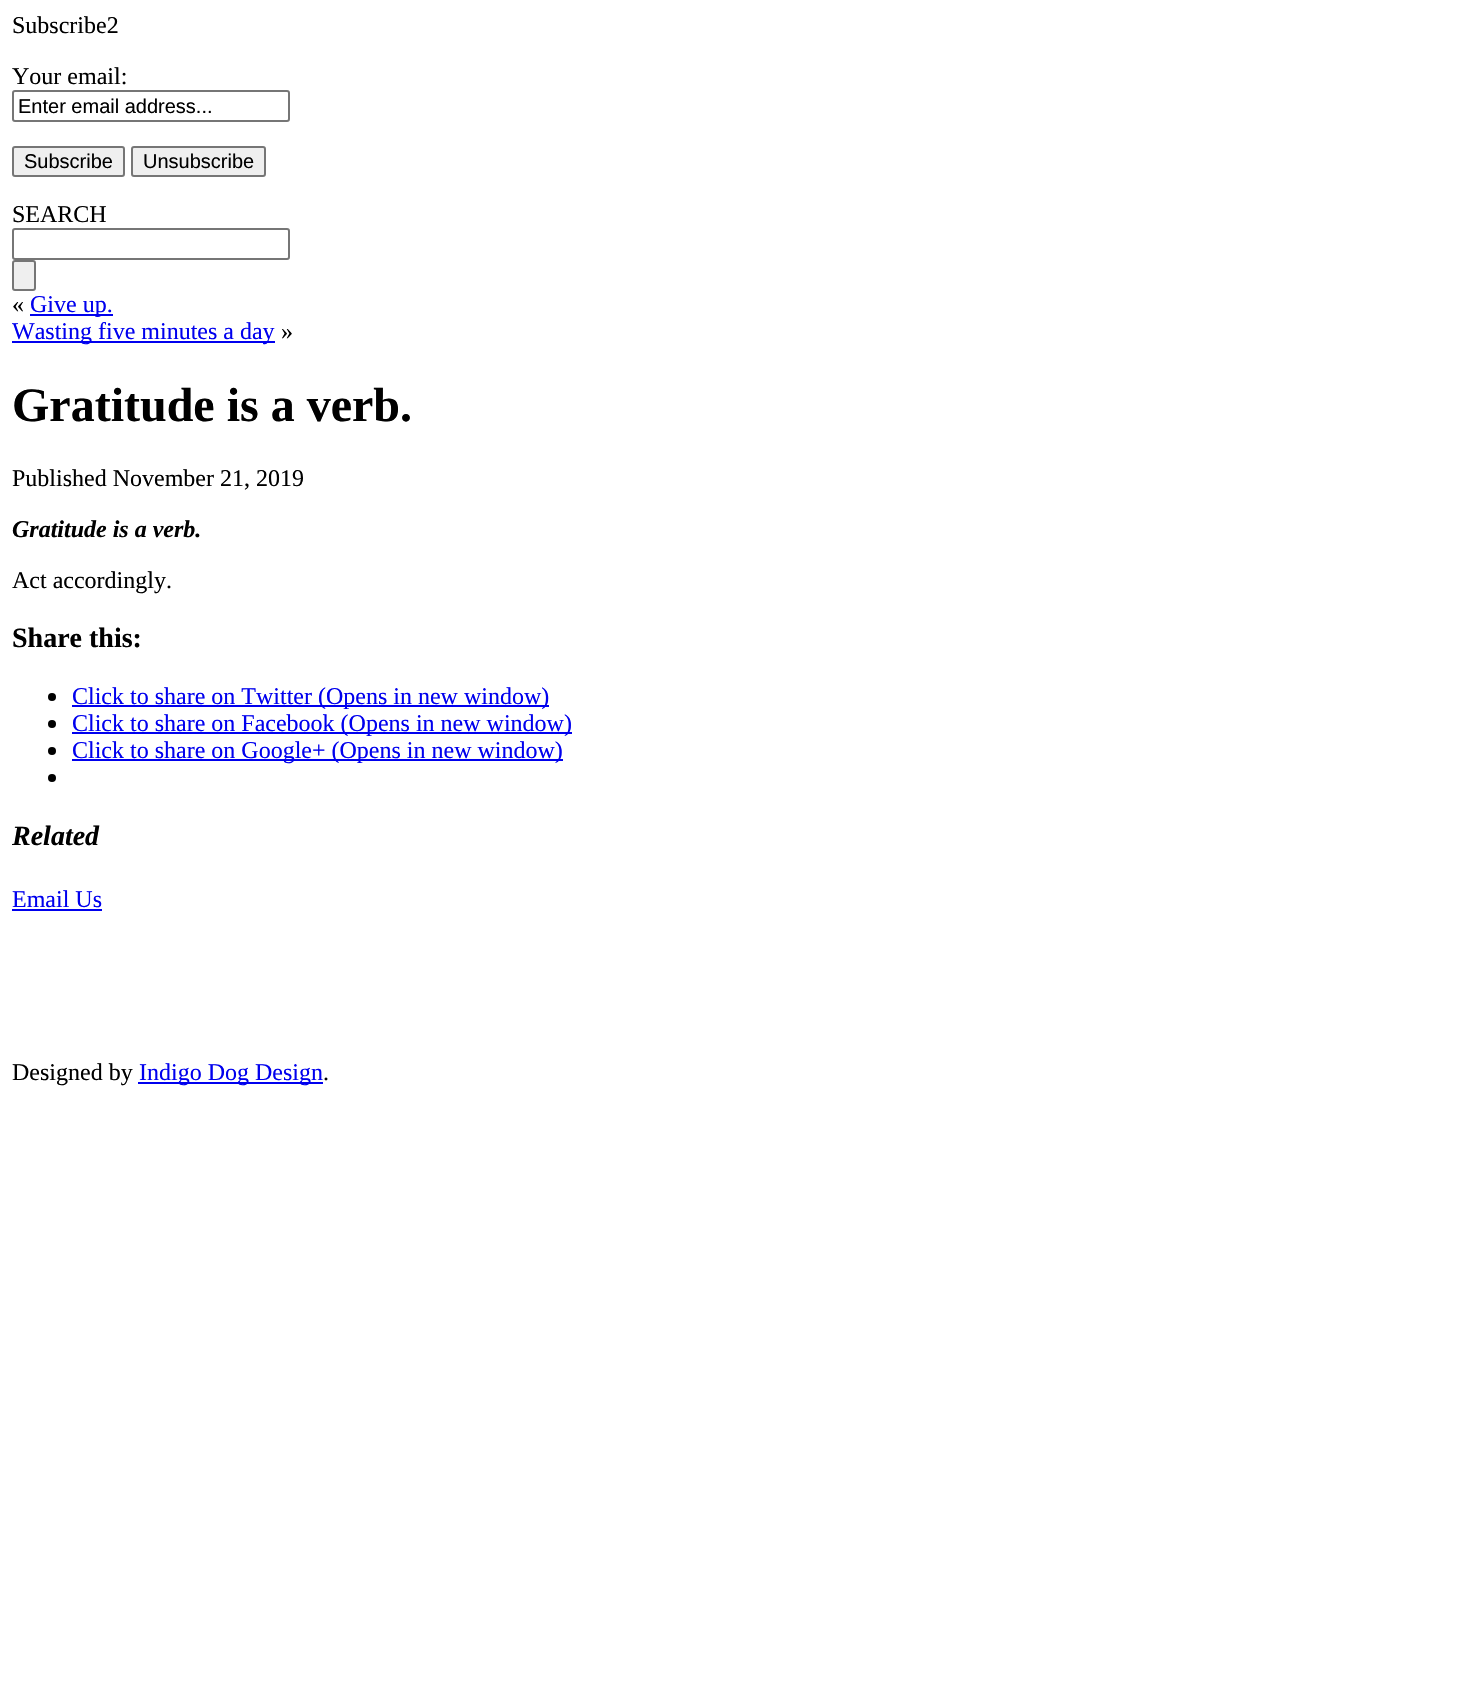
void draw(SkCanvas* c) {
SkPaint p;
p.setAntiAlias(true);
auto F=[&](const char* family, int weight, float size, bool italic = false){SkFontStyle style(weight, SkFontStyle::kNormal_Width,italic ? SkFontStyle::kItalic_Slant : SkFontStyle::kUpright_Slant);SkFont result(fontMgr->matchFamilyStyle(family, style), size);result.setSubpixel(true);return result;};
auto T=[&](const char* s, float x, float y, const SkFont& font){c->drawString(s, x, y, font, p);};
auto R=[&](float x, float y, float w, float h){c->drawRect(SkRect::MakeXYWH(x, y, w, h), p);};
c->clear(0xffffffff);
auto f1 = F("Liberation Serif",400,24);
p.setColor(0xff000000);
T("Subscribe2",12,33,f1);
T("Your email:",12,84,f1);
p.setStroke(true);
p.setStrokeWidth(2);
p.setColor(0xff767676);
c->drawRoundRect(SkRect::MakeXYWH(13,91,276,30),2,2,p);
auto f2 = F("Liberation Sans",400,20);
p.setStroke(false);
p.setColor(0xff000000);
T("Enter email address...",18,113,f2);
p.setColor(0xffefefef);
c->drawRoundRect(SkRect::MakeXYWH(13,147,111,29),2,2,p);
p.setStroke(true);
p.setColor(0xff767676);
c->drawRoundRect(SkRect::MakeXYWH(13,147,111,29),2,2,p);
p.setStroke(false);
p.setColor(0xff000000);
T("Subscribe",24,168,f2);
p.setColor(0xffefefef);
c->drawRoundRect(SkRect::MakeXYWH(132,147,133,29),2,2,p);
p.setStroke(true);
p.setColor(0xff767676);
c->drawRoundRect(SkRect::MakeXYWH(132,147,133,29),2,2,p);
p.setStroke(false);
p.setColor(0xff000000);
T("Unsubscribe",143,168,f2);
T("SEARCH",12,222,f1);
p.setStroke(true);
p.setColor(0xff767676);
c->drawRoundRect(SkRect::MakeXYWH(13,229,276,30),2,2,p);
p.setStroke(false);
p.setColor(0xffefefef);
c->drawRoundRect(SkRect::MakeXYWH(13,261,22,29),2,2,p);
p.setStroke(true);
p.setColor(0xff767676);
c->drawRoundRect(SkRect::MakeXYWH(13,261,22,29),2,2,p);
p.setStroke(false);
p.setColor(0xff000000);
T("«",12,312,f1);
p.setColor(0xff0000ee);
R(30,314,83,2);
T("Give up.",30,312,f1);
R(12,341,263,2);
T("Wasting five minutes a day",12,339,f1);
p.setColor(0xff000000);
T("»",281,339,f1);
auto f3 = F("Liberation Serif",700,48);
T("Gratitude is a verb.",12,421,f3);
T("Published November 21, 2019",12,486,f1);
auto f4 = F("Liberation Serif",700,24,true);
T("Gratitude is a verb.",12,537,f4);
T("Act accordingly.",12,588,f1);
auto f5 = F("Liberation Serif",700,28);
T("Share this:",12,647,f5);
c->drawCircle(52,697,4,p);
p.setColor(0xff0000ee);
R(72,705,477,2);
T("Click to share on Twitter (Opens in new window)",72,704,f1);
p.setColor(0xff000000);
c->drawCircle(52,724,4,p);
p.setColor(0xff0000ee);
R(72,732,500,2);
T("Click to share on Facebook (Opens in new window)",72,731,f1);
p.setColor(0xff000000);
c->drawCircle(52,751,4,p);
p.setColor(0xff0000ee);
R(72,759,491,2);
T("Click to share on Google+ (Opens in new window)",72,758,f1);
p.setColor(0xff000000);
c->drawCircle(52,778,4,p);
auto f6 = F("Liberation Serif",700,28,true);
T("Related",12,845,f6);
p.setColor(0xff0000ee);
T("Email Us",12,907,f1);
R(12,909,90,2);
p.setColor(0xff000000);
T("Designed by",12,1080,f1);
p.setColor(0xff0000ee);
R(138,1082,185,2);
T("Indigo Dog Design",139,1080,f1);
p.setColor(0xff000000);
T(".",323,1080,f1);
}
